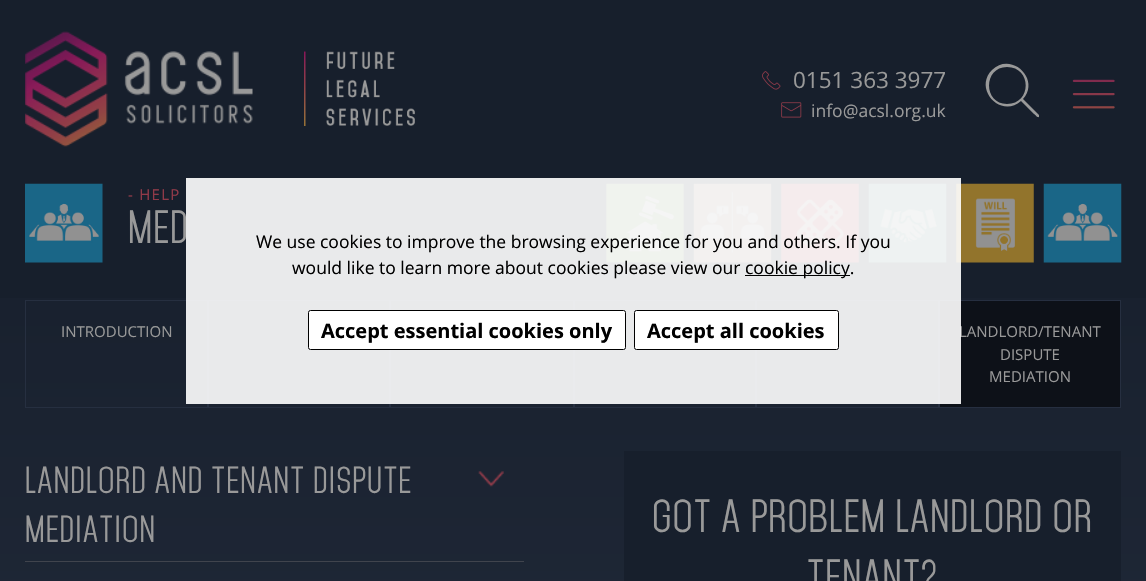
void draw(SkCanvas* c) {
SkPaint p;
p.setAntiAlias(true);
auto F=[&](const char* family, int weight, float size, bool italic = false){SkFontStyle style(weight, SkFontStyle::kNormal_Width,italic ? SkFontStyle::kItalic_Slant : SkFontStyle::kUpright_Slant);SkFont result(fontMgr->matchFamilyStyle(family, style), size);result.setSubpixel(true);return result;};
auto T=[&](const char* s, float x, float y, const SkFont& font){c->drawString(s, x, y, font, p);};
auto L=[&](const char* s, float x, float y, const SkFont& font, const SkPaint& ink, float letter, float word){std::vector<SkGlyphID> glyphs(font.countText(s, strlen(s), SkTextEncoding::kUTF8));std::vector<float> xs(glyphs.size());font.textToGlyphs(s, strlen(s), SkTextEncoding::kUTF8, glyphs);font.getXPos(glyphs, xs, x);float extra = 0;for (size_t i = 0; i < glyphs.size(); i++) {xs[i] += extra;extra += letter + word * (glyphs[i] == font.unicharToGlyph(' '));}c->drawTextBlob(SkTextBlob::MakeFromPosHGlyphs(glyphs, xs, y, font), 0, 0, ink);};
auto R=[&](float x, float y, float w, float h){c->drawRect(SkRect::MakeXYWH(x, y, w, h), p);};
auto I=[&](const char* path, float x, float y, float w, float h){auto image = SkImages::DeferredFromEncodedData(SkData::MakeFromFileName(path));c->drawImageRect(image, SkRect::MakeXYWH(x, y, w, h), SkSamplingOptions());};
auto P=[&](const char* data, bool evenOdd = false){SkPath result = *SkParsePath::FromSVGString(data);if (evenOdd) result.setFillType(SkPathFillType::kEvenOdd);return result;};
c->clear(0xff171f2c);
I("1.png",25,31,228,116);
I("2.png",304,51,111,75);
I("3.png",762,71,19,19);
auto f1 = F("Open Sans",400,22.5);
p.setColor(0xff999999);
T("0151 363 3977",793,88,f1);
I("4.png",781,102,21,16);
auto f2 = F("Open Sans",400,17.5);
T("info@acsl.org.uk",811,117,f2);
c->drawPath(P("M1039 115l-16-16c18-20-12-48-31-29c-19 19 9 49 29 31l13 13c1 0 3 4 5 3c0 0 0-1 0-2zm-32-11c-24 0-24-37 0-37c25 0 25 37 0 37z"),p);
I("5.png",1072,79,43,30);
{
const SkColor colors[] = {0xff171f2c,0xff262f40};
const float stops[] = {0,1};
const SkPoint ends[] = {{573,184}, {573,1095}};
p.setShader(SkGradientShader::MakeLinear(ends, colors, stops, 2, SkTileMode::kClamp));
p.setAlpha(255);
}
R(0,298,1146,283);
I("6.png",25,183,78,80);
auto f3 = F("Open Sans",400,15);
p.setShader(nullptr);
p.setColor(0xff913a49);
L("- HELP",128,200,f3,p,1.25,0);
auto f4 = F("Mohave",400,40);
p.setColor(0xff999999);
L("MED",128,243,f4,p,1.25,0);
I("7.png",606,183,78,80);
I("8.png",693,183,79,80);
I("9.png",781,183,78,80);
I("10.png",868,183,79,80);
I("11.png",956,183,78,80);
I("12.png",1043,183,79,80);
p.setStroke(true);
p.setStrokeWidth(1);
p.setColor(0xff262f40);
c->drawRect(SkRect::MakeXYWH(25.5,300.5,182,107),p);
p.setStroke(false);
p.setColor(0xff999999);
T("INTRODUCTION",61,337,f3);
p.setStroke(true);
p.setColor(0xff262f40);
c->drawRect(SkRect::MakeXYWH(208.5,300.5,181,107),p);
c->drawRect(SkRect::MakeXYWH(390.5,300.5,183,107),p);
c->drawRect(SkRect::MakeXYWH(574.5,300.5,181,107),p);
c->drawRect(SkRect::MakeXYWH(756.5,300.5,182,107),p);
p.setStroke(false);
p.setColor(0xff0d1118);
c->drawRect(SkRect::MakeXYWH(939.5,300.5,181,107),p);
p.setStroke(true);
p.setColor(0xff262f40);
c->drawRect(SkRect::MakeXYWH(939.5,300.5,181,107),p);
p.setStroke(false);
p.setColor(0xff999999);
T("LANDLORD/TENANT",959,337,f3);
T("DISPUTE",1000,360,f3);
T("MEDIATION",989,382,f3);
p.setColor(0xff40444d);
R(25,561,499,1);
auto f5 = F("Mohave",400,32.5);
p.setColor(0xff999999);
L("LANDLORD AND TENANT DISPUTE",25,493,f5,p,1.25,0);
I("13.png",478,471,26,16);
L("MEDIATION",25,542,f5,p,1.25,0);
p.setColor(0xff171f2c);
R(624,451,497,130);
p.setColor(0xff999999);
L("GOT A PROBLEM LANDLORD OR",652,532,f4,p,1.25,0);
L("TENANT?",807,592,f4,p,1.25,0);
p.setColor(0xe6ffffff);
R(186,178,775,226);
p.setColor(0xff000000);
T("We use cookies to improve the browsing experience for you and others. If you",256,248,f2);
T("would like to learn more about cookies please view our",292,274,f2);
R(745,275,105,1);
T("cookie policy.",745,274,f2);
p.setColor(0xffffffff);
c->drawRoundRect(SkRect::MakeXYWH(308.5,310.5,317,39),2,2,p);
p.setStroke(true);
p.setColor(0xff000000);
c->drawRoundRect(SkRect::MakeXYWH(308.5,310.5,317,39),2,2,p);
auto f6 = F("Open Sans",700,20);
p.setStroke(false);
T("Accept essential cookies only",321,338,f6);
p.setColor(0xffffffff);
c->drawRoundRect(SkRect::MakeXYWH(634.5,310.5,204,39),2,2,p);
p.setStroke(true);
p.setColor(0xff000000);
c->drawRoundRect(SkRect::MakeXYWH(634.5,310.5,204,39),2,2,p);
p.setStroke(false);
T("Accept all cookies",647,338,f6);
}
